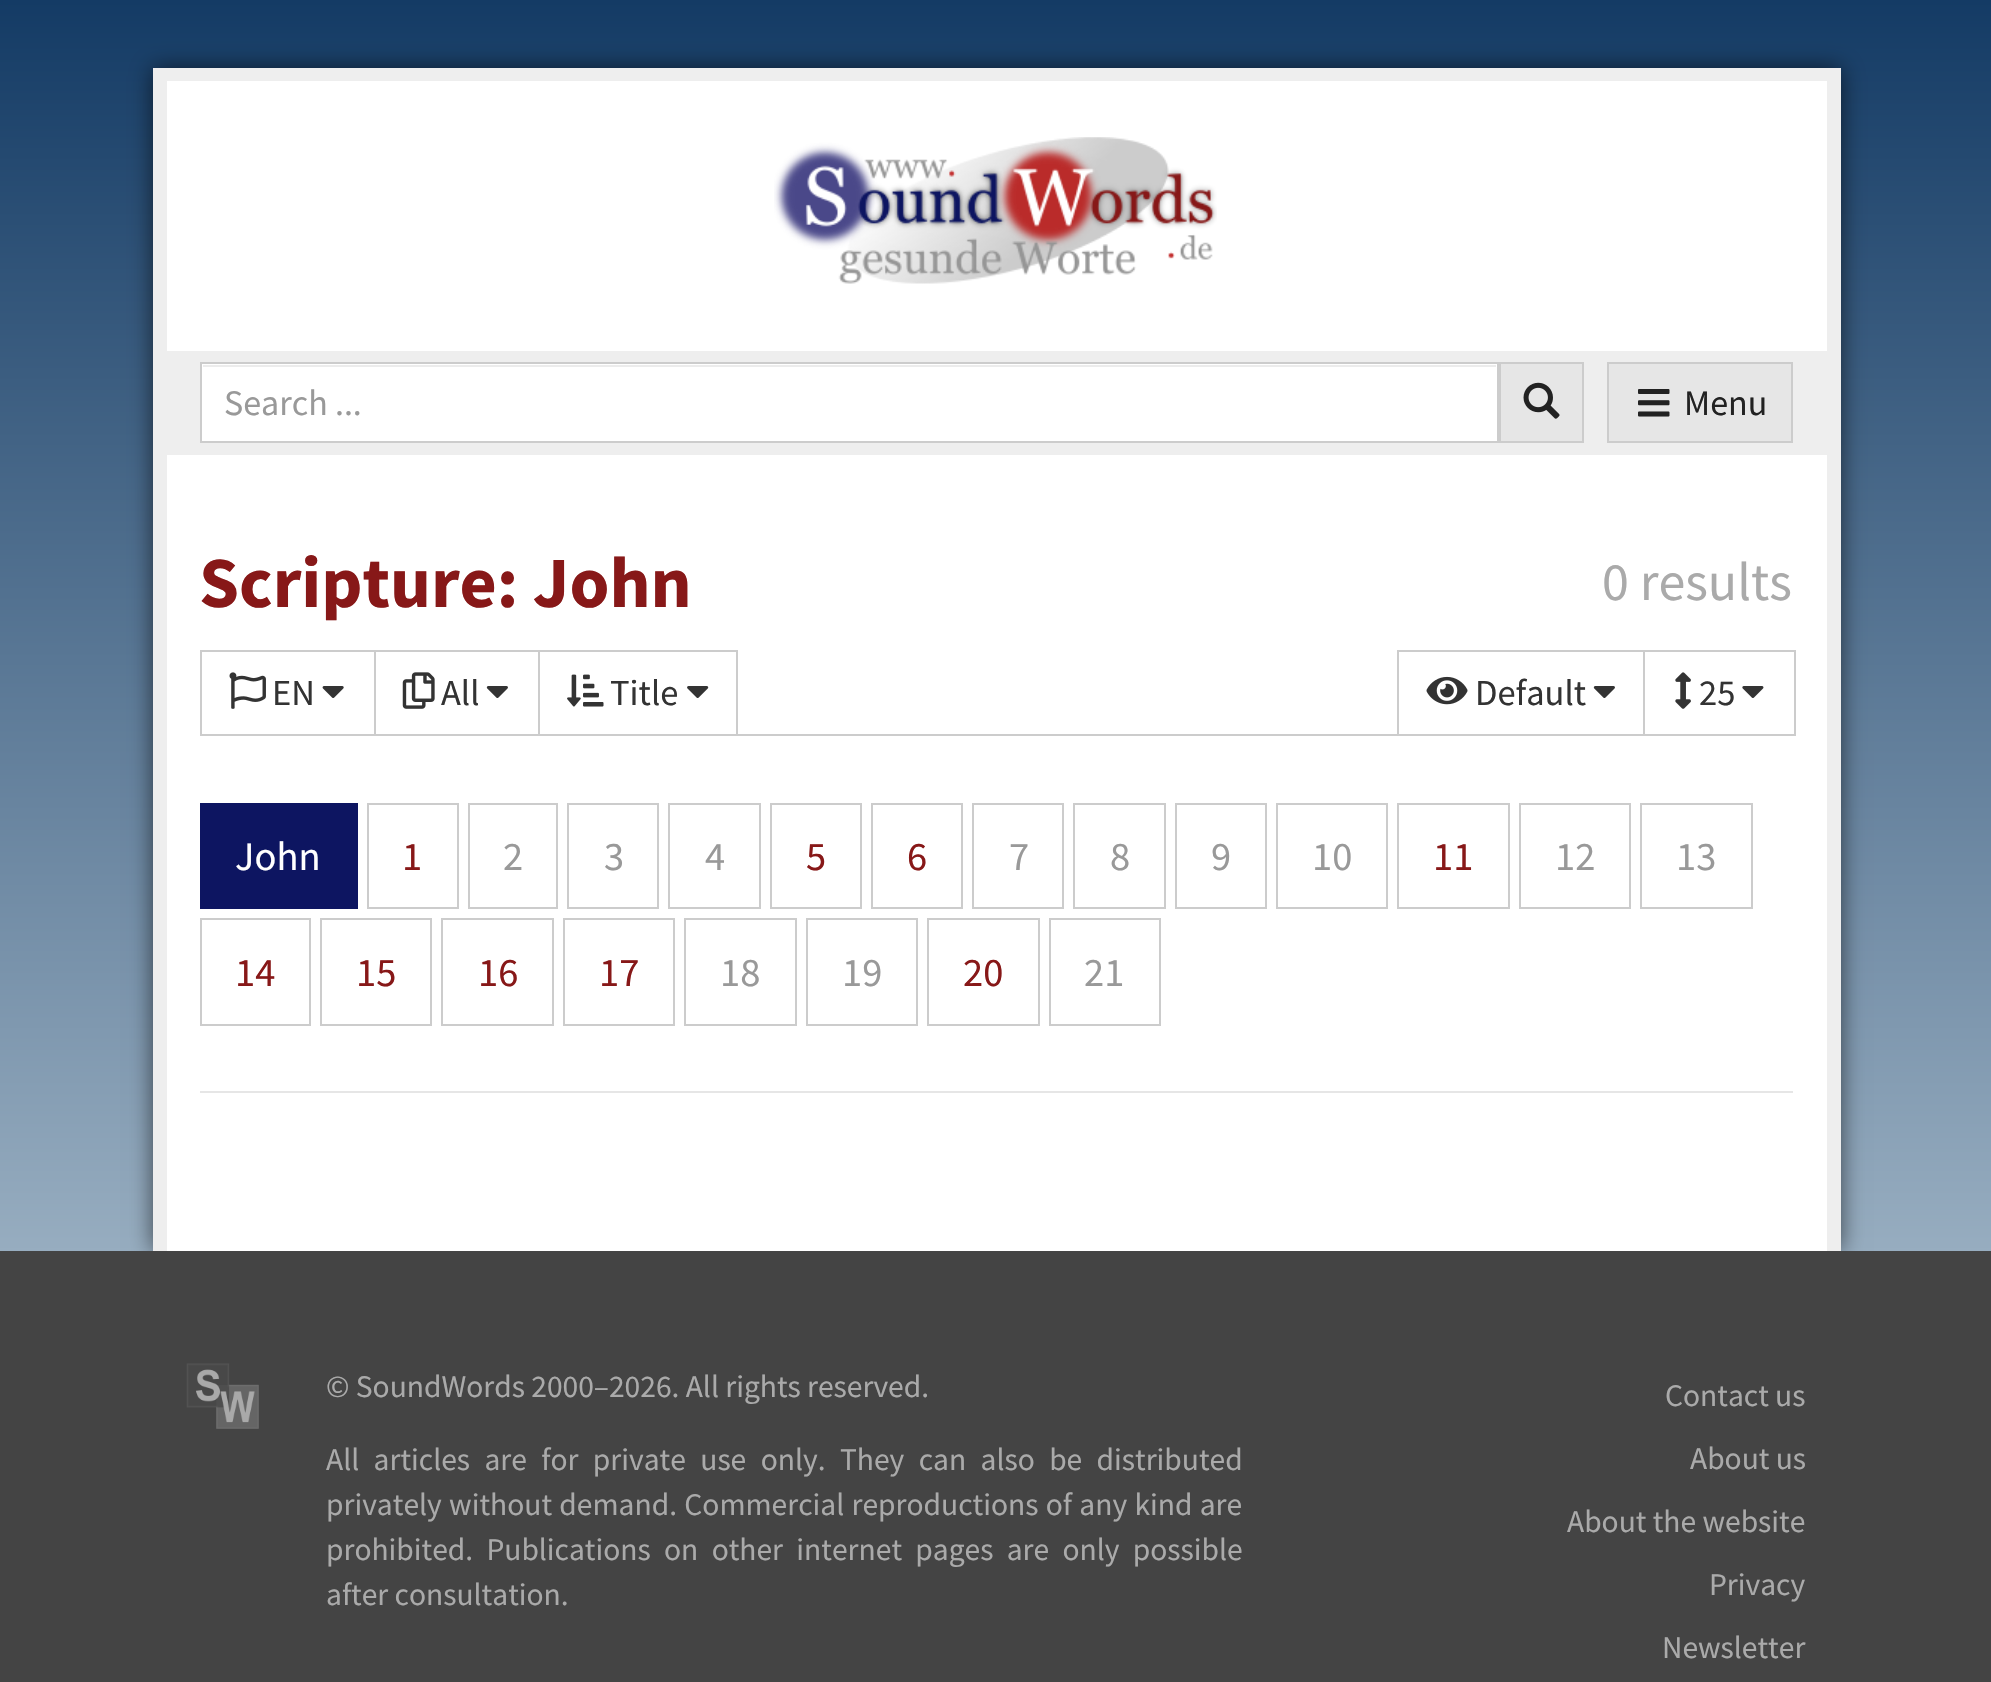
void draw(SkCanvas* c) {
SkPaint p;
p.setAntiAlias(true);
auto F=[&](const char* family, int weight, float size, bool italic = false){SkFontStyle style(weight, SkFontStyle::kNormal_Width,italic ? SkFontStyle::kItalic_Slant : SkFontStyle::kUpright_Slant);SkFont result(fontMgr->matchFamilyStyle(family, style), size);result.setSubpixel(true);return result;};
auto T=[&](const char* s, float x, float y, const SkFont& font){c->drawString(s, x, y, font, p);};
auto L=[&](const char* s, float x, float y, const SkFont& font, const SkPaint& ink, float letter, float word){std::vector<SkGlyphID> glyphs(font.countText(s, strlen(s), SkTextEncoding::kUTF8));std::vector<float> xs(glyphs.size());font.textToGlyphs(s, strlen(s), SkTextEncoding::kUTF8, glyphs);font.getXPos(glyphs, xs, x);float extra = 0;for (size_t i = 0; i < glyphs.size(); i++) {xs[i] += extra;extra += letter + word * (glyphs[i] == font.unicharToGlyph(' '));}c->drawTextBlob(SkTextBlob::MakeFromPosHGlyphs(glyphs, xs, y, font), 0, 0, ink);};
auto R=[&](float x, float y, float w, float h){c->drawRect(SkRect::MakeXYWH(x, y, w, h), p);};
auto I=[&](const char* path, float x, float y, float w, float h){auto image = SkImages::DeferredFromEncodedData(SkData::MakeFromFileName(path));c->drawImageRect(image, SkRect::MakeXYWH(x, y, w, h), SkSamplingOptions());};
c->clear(0xffffffff);
{
const SkColor colors[] = {0xff143b65,0xffc4d4df};
const float stops[] = {0,1};
const SkPoint ends[] = {{996,0}, {996,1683}};
p.setShader(SkGradientShader::MakeLinear(ends, colors, stops, 2, SkTileMode::kClamp));
p.setAlpha(255);
}
R(0,0,1991,1251);
p.setShader(nullptr);
p.setColor(0x99000000);
p.setMaskFilter(SkMaskFilter::MakeBlur(kNormal_SkBlurStyle, 11));
c->drawRect(SkRect::MakeXYWH(153,68,1688,1183),p);
p.setMaskFilter(nullptr);
p.setColor(0xffffffff);
R(167,81,1660,1170);
p.setColor(0xffeeeeee);
R(167,68,1660,13);
R(1827,68,14,1183);
R(153,68,14,1183);
I("1.png",774,137,443,147);
R(167,351,1660,104);
p.setColor(0xffffffff);
R(202,364,1295,77);
p.setColor(0xffececec);
R(203,365,1293,2);
p.setStroke(true);
p.setStrokeWidth(2);
p.setColor(0xffcccccc);
c->drawRect(SkRect::MakeXYWH(201,363,1297,79),p);
auto f1 = F("Source Sans Pro",400,36);
p.setStroke(false);
p.setColor(0xff999999);
T("Search ...",224,415,f1);
p.setColor(0xffe6e6e6);
c->drawRect(SkRect::MakeXYWH(1500,363,83,79),p);
p.setStroke(true);
p.setColor(0xffcccccc);
c->drawRect(SkRect::MakeXYWH(1500,363,83,79),p);
I("2.png",1523,382,37,37);
p.setStroke(false);
p.setColor(0xffe6e6e6);
c->drawRect(SkRect::MakeXYWH(1608,363,184,79),p);
p.setStroke(true);
p.setColor(0xffcccccc);
c->drawRect(SkRect::MakeXYWH(1608,363,184,79),p);
I("3.png",1638,389,32,28);
p.setStroke(false);
p.setColor(0xff222222);
T("Menu",1684,415,f1);
auto f2 = F("Source Sans Pro",700,72);
p.setColor(0xff871818);
T("Scripture: John",199,607,f2);
auto f3 = F("Source Sans Pro",400,54);
p.setColor(0xffaaaaaa);
T("0 results",1602,600,f3);
p.setColor(0xffcccccc);
R(738,734,659,2);
p.setStroke(true);
c->drawRect(SkRect::MakeXYWH(201,651,174,84),p);
I("4.png",229,672,37,37);
auto f4 = F("Source Sans Pro",400,36.5);
p.setStroke(false);
p.setColor(0xff333333);
T("EN",272,705,f4);
I("5.png",322,686,22,12);
p.setStroke(true);
p.setColor(0xffcccccc);
c->drawRect(SkRect::MakeXYWH(375,651,164,84),p);
I("6.png",402,672,33,37);
p.setStroke(false);
p.setColor(0xff333333);
T("All",441,705,f4);
I("7.png",486,686,22,12);
p.setStroke(true);
p.setColor(0xffcccccc);
c->drawRect(SkRect::MakeXYWH(539,651,198,84),p);
I("8.png",567,674,37,33);
p.setStroke(false);
p.setColor(0xff333333);
T("Title",610,705,f4);
I("9.png",687,686,22,12);
p.setStroke(true);
p.setColor(0xffcccccc);
c->drawRect(SkRect::MakeXYWH(1398,651,246,84),p);
I("10.png",1426,676,42,29);
p.setStroke(false);
p.setColor(0xff333333);
T("Default",1475,705,f4);
I("7.png",1593,686,22,12);
p.setStroke(true);
p.setColor(0xffcccccc);
c->drawRect(SkRect::MakeXYWH(1644,651,151,84),p);
I("11.png",1675,672,16,37);
p.setStroke(false);
p.setColor(0xff333333);
T("25",1699,705,f4);
I("12.png",1742,686,22,12);
p.setColor(0xff0d1561);
R(200,803,158,106);
auto f5 = F("Source Sans Pro",400,40.5);
p.setColor(0xffffffff);
T("John",235,870,f5);
p.setStroke(true);
p.setColor(0xffcccccc);
c->drawRect(SkRect::MakeXYWH(368,804,90,104),p);
p.setStroke(false);
p.setColor(0xff871818);
T("1",402,870,f5);
p.setStroke(true);
p.setColor(0xffcccccc);
c->drawRect(SkRect::MakeXYWH(469,804,88,104),p);
p.setStroke(false);
p.setColor(0xff999999);
T("2",503,870,f5);
p.setStroke(true);
p.setColor(0xffcccccc);
c->drawRect(SkRect::MakeXYWH(568,804,90,104),p);
p.setStroke(false);
p.setColor(0xff999999);
T("3",604,870,f5);
p.setStroke(true);
p.setColor(0xffcccccc);
c->drawRect(SkRect::MakeXYWH(669,804,91,104),p);
p.setStroke(false);
p.setColor(0xff999999);
T("4",705,870,f5);
p.setStroke(true);
p.setColor(0xffcccccc);
c->drawRect(SkRect::MakeXYWH(771,804,90,104),p);
p.setStroke(false);
p.setColor(0xff871818);
T("5",806,870,f5);
p.setStroke(true);
p.setColor(0xffcccccc);
c->drawRect(SkRect::MakeXYWH(872,804,90,104),p);
p.setStroke(false);
p.setColor(0xff871818);
T("6",907,870,f5);
p.setStroke(true);
p.setColor(0xffcccccc);
c->drawRect(SkRect::MakeXYWH(973,804,90,104),p);
p.setStroke(false);
p.setColor(0xff999999);
T("7",1009,870,f5);
p.setStroke(true);
p.setColor(0xffcccccc);
c->drawRect(SkRect::MakeXYWH(1074,804,91,104),p);
p.setStroke(false);
p.setColor(0xff999999);
T("8",1110,870,f5);
p.setStroke(true);
p.setColor(0xffcccccc);
c->drawRect(SkRect::MakeXYWH(1176,804,90,104),p);
p.setStroke(false);
p.setColor(0xff999999);
T("9",1211,870,f5);
p.setStroke(true);
p.setColor(0xffcccccc);
c->drawRect(SkRect::MakeXYWH(1277,804,110,104),p);
p.setStroke(false);
p.setColor(0xff999999);
T("10",1312,870,f5);
p.setStroke(true);
p.setColor(0xffcccccc);
c->drawRect(SkRect::MakeXYWH(1398,804,111,104),p);
p.setStroke(false);
p.setColor(0xff871818);
T("11",1433,870,f5);
p.setStroke(true);
p.setColor(0xffcccccc);
c->drawRect(SkRect::MakeXYWH(1520,804,110,104),p);
p.setStroke(false);
p.setColor(0xff999999);
T("12",1555,870,f5);
p.setStroke(true);
p.setColor(0xffcccccc);
c->drawRect(SkRect::MakeXYWH(1641,804,111,104),p);
p.setStroke(false);
p.setColor(0xff999999);
T("13",1676,870,f5);
p.setStroke(true);
p.setColor(0xffcccccc);
c->drawRect(SkRect::MakeXYWH(201,919,109,106),p);
p.setStroke(false);
p.setColor(0xff871818);
T("14",235,986,f5);
p.setStroke(true);
p.setColor(0xffcccccc);
c->drawRect(SkRect::MakeXYWH(321,919,110,106),p);
p.setStroke(false);
p.setColor(0xff871818);
T("15",356,986,f5);
p.setStroke(true);
p.setColor(0xffcccccc);
c->drawRect(SkRect::MakeXYWH(442,919,111,106),p);
p.setStroke(false);
p.setColor(0xff871818);
T("16",478,986,f5);
p.setStroke(true);
p.setColor(0xffcccccc);
c->drawRect(SkRect::MakeXYWH(564,919,110,106),p);
p.setStroke(false);
p.setColor(0xff871818);
T("17",599,986,f5);
p.setStroke(true);
p.setColor(0xffcccccc);
c->drawRect(SkRect::MakeXYWH(685,919,111,106),p);
p.setStroke(false);
p.setColor(0xff999999);
T("18",720,986,f5);
p.setStroke(true);
p.setColor(0xffcccccc);
c->drawRect(SkRect::MakeXYWH(807,919,110,106),p);
p.setStroke(false);
p.setColor(0xff999999);
T("19",842,986,f5);
p.setStroke(true);
p.setColor(0xffcccccc);
c->drawRect(SkRect::MakeXYWH(928,919,111,106),p);
p.setStroke(false);
p.setColor(0xff871818);
T("20",963,986,f5);
p.setStroke(true);
p.setColor(0xffcccccc);
c->drawRect(SkRect::MakeXYWH(1050,919,110,106),p);
p.setStroke(false);
p.setColor(0xff999999);
T("21",1084,986,f5);
p.setColor(0xffe6e6e6);
R(200,1091,1593,2);
p.setColor(0xff444444);
R(0,1251,1991,431);
I("13.png",186,1363,73,66);
auto f6 = F("Source Sans Pro",400,31.5);
p.setColor(0xffaaaaaa);
T("© SoundWords 2000–2026. All rights reserved.",326,1397,f6);
L("All articles are for private use only. They can also be distributed",326,1470,f6,p,0,8.1);
L("privately without demand. Commercial reproductions of any kind are",326,1515,f6,p,0,1);
L("prohibited. Publications on other internet pages are only possible",326,1560,f6,p,0,7);
T("after consultation.",326,1605,f6);
T("Contact us",1665,1406,f6);
T("About us",1690,1469,f6);
T("About the website",1567,1532,f6);
T("Privacy",1709,1595,f6);
T("Newsletter",1662,1658,f6);
}
